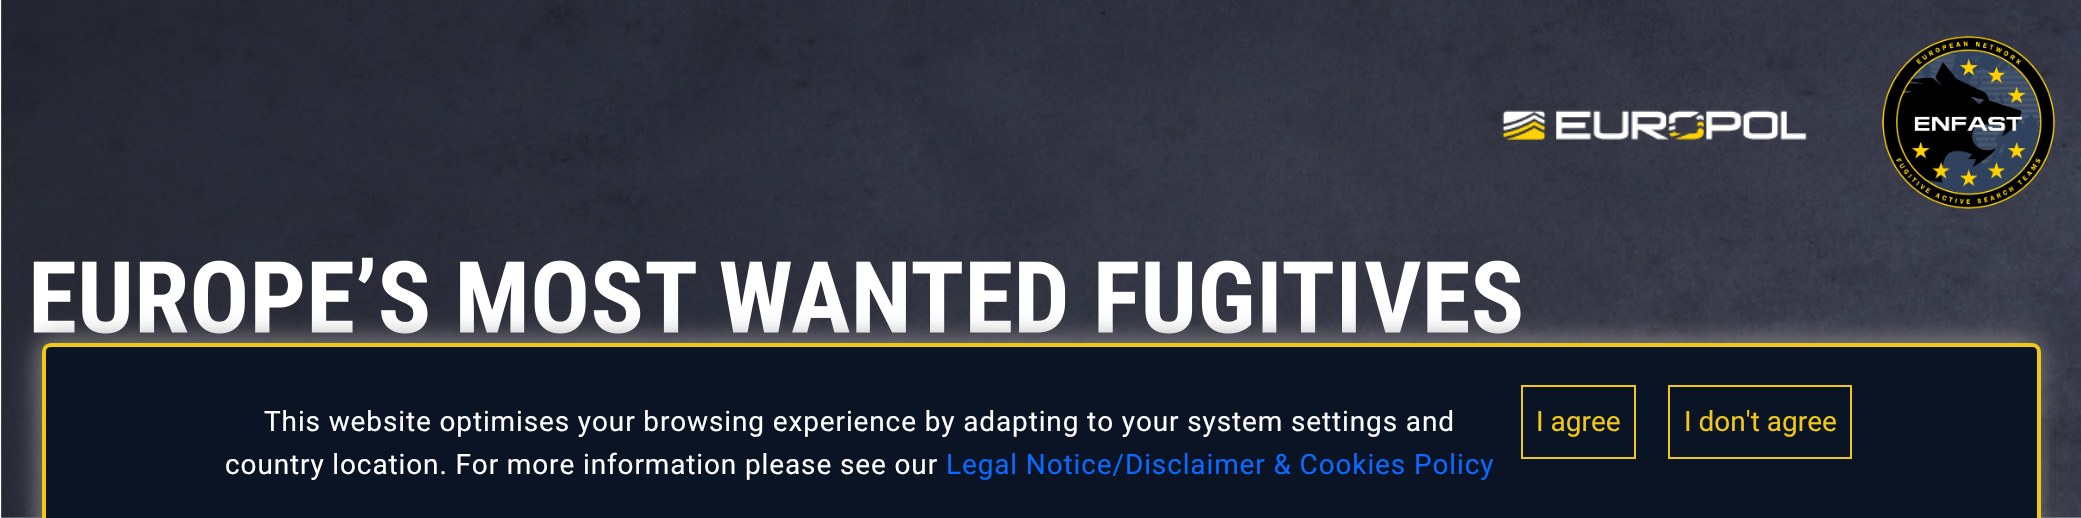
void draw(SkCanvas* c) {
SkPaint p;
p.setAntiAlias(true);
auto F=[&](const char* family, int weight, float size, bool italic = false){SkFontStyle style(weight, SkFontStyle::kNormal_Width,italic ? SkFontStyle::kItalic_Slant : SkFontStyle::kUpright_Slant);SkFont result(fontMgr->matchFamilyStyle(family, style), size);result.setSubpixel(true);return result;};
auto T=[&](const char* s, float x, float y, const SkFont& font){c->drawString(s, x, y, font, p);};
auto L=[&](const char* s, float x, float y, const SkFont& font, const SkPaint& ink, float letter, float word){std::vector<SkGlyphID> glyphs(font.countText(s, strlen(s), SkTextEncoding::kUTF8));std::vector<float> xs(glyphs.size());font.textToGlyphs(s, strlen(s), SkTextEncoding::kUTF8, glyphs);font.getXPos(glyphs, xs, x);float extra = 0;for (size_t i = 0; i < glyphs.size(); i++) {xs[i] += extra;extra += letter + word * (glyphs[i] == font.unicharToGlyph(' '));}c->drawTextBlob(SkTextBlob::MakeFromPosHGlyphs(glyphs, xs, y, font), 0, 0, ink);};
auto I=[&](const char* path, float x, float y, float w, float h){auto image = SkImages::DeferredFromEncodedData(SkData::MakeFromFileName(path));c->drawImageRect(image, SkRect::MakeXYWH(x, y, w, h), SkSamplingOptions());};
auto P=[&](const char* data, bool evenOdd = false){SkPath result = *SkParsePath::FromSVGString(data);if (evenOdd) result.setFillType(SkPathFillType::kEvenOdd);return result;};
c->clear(0xffffffff);
I("1.png",1,0,2080,518);
I("2.png",1502,110,305,30);
I("3.png",1882,35,174,175);
I("4.png",33,257,1488,77);
p.setStroke(true);
p.setStrokeWidth(7);
p.setColor(0x1a000000);
c->drawRoundRect(SkRect::MakeXYWH(1890.5,421.5,162,86),.5,.5,p);
p.setStroke(false);
p.setColor(0xff888888);
p.setMaskFilter(SkMaskFilter::MakeBlur(kNormal_SkBlurStyle, 13));
c->drawRoundRect(SkRect::MakeXYWH(39,340,1998,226),9,9,p);
p.setMaskFilter(nullptr);
p.setColor(0xff0a1425);
c->drawPath(P("M51 345h1981c4 0 7 3 7 7v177h-1995v-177c0-4 3-7 7-7z"),p);
p.setStroke(true);
p.setStrokeWidth(4);
p.setColor(0xfff1c816);
c->drawPath(P("M51 345h1981c4 0 7 3 7 7v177h-1995v-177c0-4 3-7 7-7z"),p);
auto f1 = F("Roboto",400,28);
p.setStroke(false);
p.setColor(0xffffffff);
L("This website optimises your browsing experience by adapting to your system settings and",264,431,f1,p,.88,0);
L("country location. For more information please see our",225,474,f1,p,.88,0);
p.setColor(0xff0b69ff);
L("Legal Notice/Disclaimer & Cookies Policy",946,474,f1,p,.88,0);
p.setStroke(true);
p.setStrokeWidth(2);
p.setColor(0xfff1c816);
c->drawRect(SkRect::MakeXYWH(1522,386,113,72),p);
p.setStroke(false);
T("I agree",1536,431,f1);
p.setStroke(true);
c->drawRect(SkRect::MakeXYWH(1669,386,182,72),p);
p.setStroke(false);
T("I don't agree",1684,431,f1);
}
